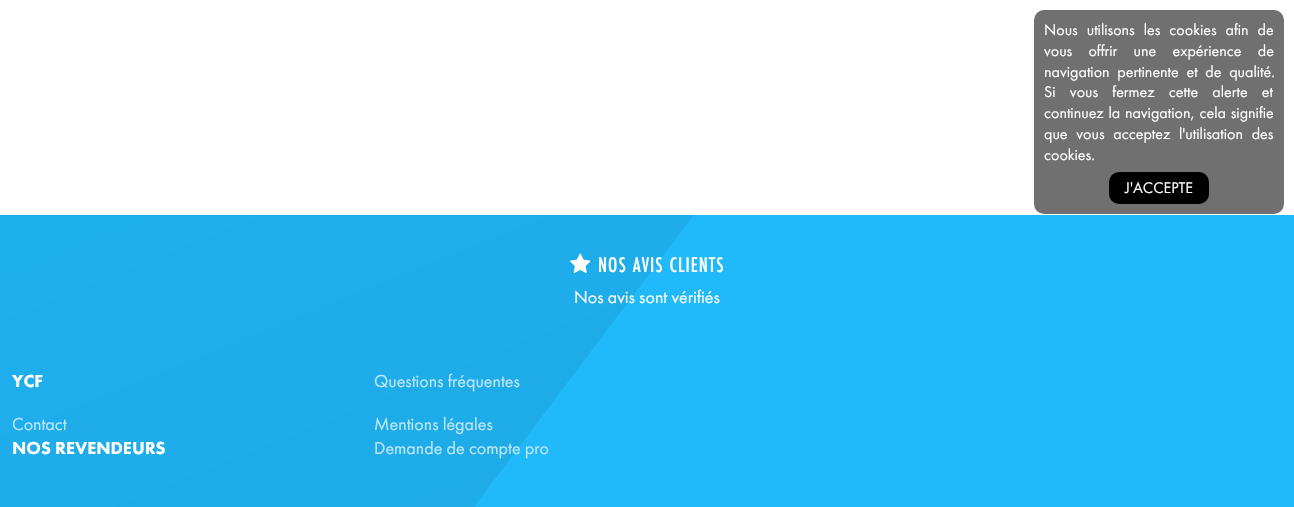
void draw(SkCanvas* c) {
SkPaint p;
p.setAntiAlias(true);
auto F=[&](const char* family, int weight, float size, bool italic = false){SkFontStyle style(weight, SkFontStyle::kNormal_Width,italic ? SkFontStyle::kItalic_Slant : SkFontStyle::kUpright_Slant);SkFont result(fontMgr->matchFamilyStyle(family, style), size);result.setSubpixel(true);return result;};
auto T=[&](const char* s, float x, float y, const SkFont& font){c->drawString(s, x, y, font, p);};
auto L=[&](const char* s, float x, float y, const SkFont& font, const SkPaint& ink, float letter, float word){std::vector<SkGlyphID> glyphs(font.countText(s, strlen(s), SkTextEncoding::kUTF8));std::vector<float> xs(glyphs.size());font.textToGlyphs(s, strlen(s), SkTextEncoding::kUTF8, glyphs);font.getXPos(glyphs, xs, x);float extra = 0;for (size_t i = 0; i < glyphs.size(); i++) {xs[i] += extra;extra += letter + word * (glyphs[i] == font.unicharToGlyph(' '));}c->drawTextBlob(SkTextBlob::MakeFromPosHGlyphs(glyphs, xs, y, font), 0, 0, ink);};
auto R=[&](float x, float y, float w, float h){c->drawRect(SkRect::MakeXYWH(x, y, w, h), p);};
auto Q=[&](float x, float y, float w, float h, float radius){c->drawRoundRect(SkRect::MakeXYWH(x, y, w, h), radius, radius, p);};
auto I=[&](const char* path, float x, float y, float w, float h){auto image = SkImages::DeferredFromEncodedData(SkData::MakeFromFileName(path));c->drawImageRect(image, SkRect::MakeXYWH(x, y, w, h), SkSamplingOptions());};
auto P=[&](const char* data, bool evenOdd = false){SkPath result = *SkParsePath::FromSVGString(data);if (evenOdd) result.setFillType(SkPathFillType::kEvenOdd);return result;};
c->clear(0xffffffff);
p.setColor(0xff707070);
Q(1034,10,250,204,10);
auto f1 = F("Futura PT",400,16);
p.setColor(0xffffffff);
L("Nous utilisons les cookies afin de",1044,35,f1,p,0,5.25);
L("vous offrir une expérience de",1044,56,f1,p,0,12.5);
L("navigation pertinente et de qualité.",1044,77,f1,p,0,4);
L("Si vous fermez cette alerte et",1044,97,f1,p,0,10.5);
L("continuez la navigation, cela signifie",1044,118,f1,p,0,1);
L("que vous acceptez l'utilisation des",1044,139,f1,p,0,5);
T("cookies.",1044,160,f1);
p.setColor(0xff000000);
Q(1109,172,100,32,10);
p.setColor(0xffffffff);
T("J'ACCEPTE",1125,193,f1);
p.setColor(0xff20b9fa);
R(473,215,821,292);
c->save();
c->clipRect(SkRect::MakeXYWH(0,215,1294,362));
{
const SkColor colors[] = {0xff1da7e2,0xff20b9fa};
const float stops[] = {.06,1};
const SkPoint ends[] = {{35,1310}, {-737,-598}};
p.setShader(SkGradientShader::MakeLinear(ends, colors, stops, 2, SkTileMode::kClamp));
p.setAlpha(255);
}
c->drawPath(P("M699 208l-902 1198l-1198-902l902-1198z"),p);
c->restore();
I("1.png",570,253,21,20);
auto f2 = F("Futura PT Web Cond",500,22);
p.setShader(nullptr);
p.setColor(0xffffffff);
L("NOS AVIS CLIENTS",598,272,f2,p,1,0);
auto f3 = F("Futura PT",400,18);
T("Nos avis sont vérifiés",574,303,f3);
auto f4 = F("Futura PT",900,18);
T("YCF",12,387,f4);
p.setColor(0xffbce6f8);
T("Questions fréquentes",374,387,f3);
T("Contact",12,430,f3);
T("Mentions légales",374,430,f3);
p.setColor(0xffffffff);
T("NOS REVENDEURS",12,454,f4);
p.setColor(0xffbce6f8);
T("Demande de compte pro",374,454,f3);
}
